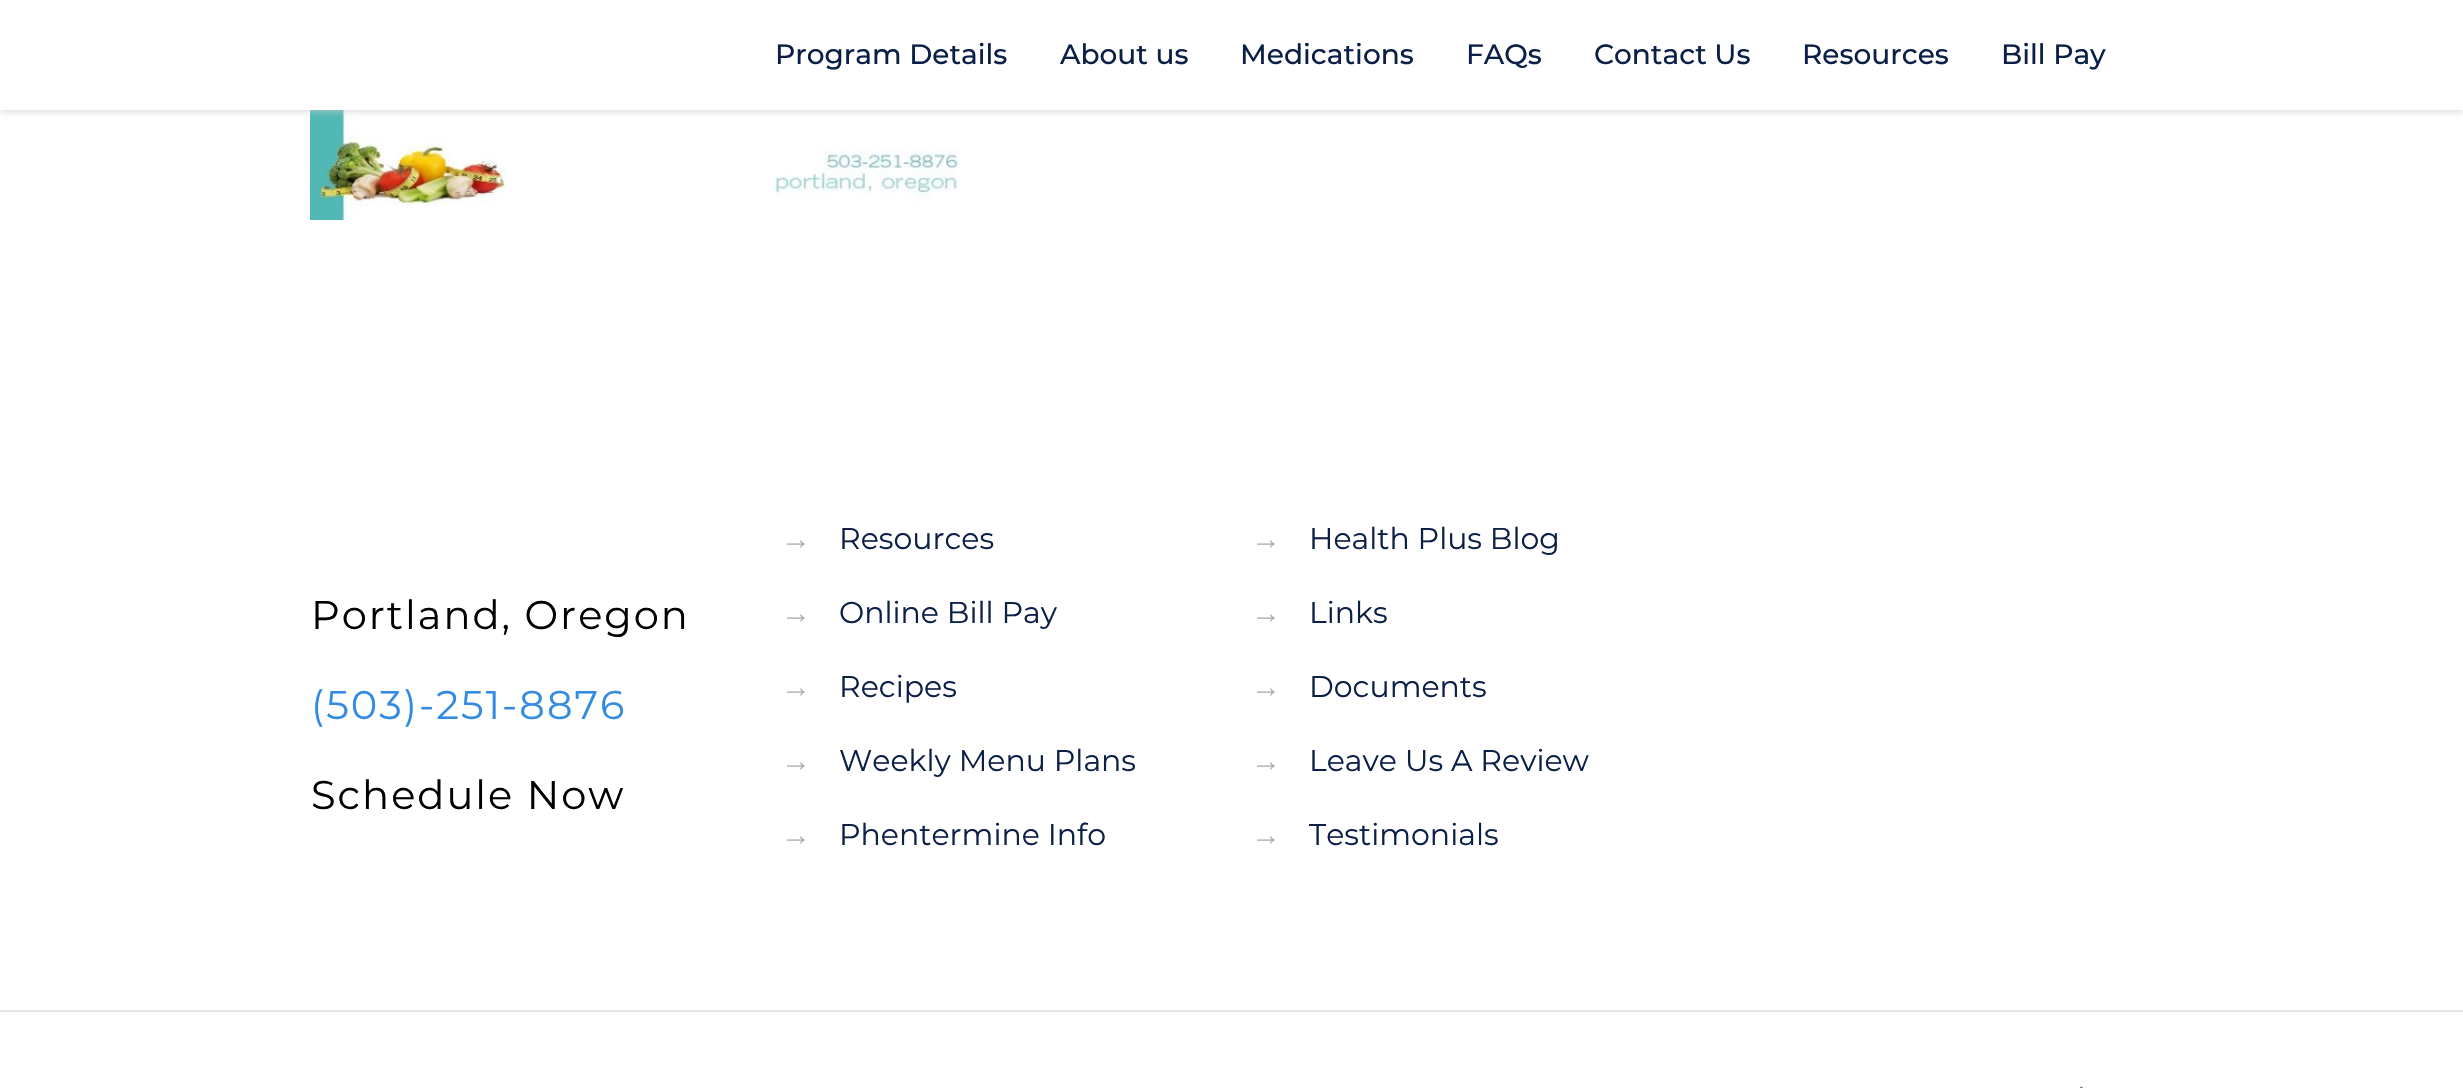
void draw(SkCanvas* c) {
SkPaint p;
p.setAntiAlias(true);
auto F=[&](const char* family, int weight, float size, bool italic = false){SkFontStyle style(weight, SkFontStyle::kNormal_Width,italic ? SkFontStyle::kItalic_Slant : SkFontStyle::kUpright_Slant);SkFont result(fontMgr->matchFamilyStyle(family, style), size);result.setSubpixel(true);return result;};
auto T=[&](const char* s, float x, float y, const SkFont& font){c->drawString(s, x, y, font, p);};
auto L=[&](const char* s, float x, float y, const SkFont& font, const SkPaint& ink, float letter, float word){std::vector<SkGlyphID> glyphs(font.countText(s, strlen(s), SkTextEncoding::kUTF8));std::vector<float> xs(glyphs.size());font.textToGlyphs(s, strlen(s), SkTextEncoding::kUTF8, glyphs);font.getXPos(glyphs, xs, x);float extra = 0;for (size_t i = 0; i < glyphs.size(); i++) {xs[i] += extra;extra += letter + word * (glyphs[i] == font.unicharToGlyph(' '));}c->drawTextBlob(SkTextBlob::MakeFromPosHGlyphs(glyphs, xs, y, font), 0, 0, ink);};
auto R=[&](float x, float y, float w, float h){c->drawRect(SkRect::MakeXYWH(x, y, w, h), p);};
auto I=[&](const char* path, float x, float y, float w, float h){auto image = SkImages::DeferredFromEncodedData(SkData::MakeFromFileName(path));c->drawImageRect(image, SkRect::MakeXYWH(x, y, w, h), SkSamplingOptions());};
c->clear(0xffffffff);
I("1.png",310,110,651,110);
c->save();
c->clipRect(SkRect::MakeXYWH(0,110,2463,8));
p.setColor(0xffcccccc);
p.setMaskFilter(SkMaskFilter::MakeBlur(kNormal_SkBlurStyle, 4));
c->drawRect(SkRect::MakeXYWH(0,0,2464,110),p);
p.setMaskFilter(nullptr);
c->restore();
auto f1 = F("Montserrat",500,28);
p.setColor(0xff0b1f47);
T("Program Details",775,64,f1);
T("About us",1060,64,f1);
T("Medications",1240,64,f1);
T("FAQs",1466,64,f1);
T("Contact Us",1594,64,f1);
T("Resources",1802,64,f1);
T("Bill Pay",2001,64,f1);
auto f2 = F("Montserrat",400,40);
p.setColor(0xff000000);
L("Portland, Oregon",311,629,f2,p,2,0);
p.setColor(0xff348be2);
L("(503)-251-8876",311,719,f2,p,2,0);
p.setColor(0xff000000);
L("Schedule Now",311,809,f2,p,2,0);
auto f3 = F("Liberation Sans",400,30);
p.setColor(0xffb1b1b1);
T("→",781,549,f3);
auto f4 = F("Montserrat",400,30);
p.setColor(0xff0b1f47);
T("Resources",839,549,f4);
p.setColor(0xffb1b1b1);
T("→",781,623,f3);
p.setColor(0xff0b1f47);
T("Online Bill Pay",839,623,f4);
p.setColor(0xffb1b1b1);
T("→",781,697,f3);
p.setColor(0xff0b1f47);
T("Recipes",839,697,f4);
p.setColor(0xffb1b1b1);
T("→",781,771,f3);
p.setColor(0xff0b1f47);
T("Weekly Menu Plans",839,771,f4);
p.setColor(0xffb1b1b1);
T("→",781,845,f3);
p.setColor(0xff0b1f47);
T("Phentermine Info",839,845,f4);
p.setColor(0xffb1b1b1);
T("→",1251,549,f3);
p.setColor(0xff0b1f47);
T("Health Plus Blog",1309,549,f4);
p.setColor(0xffb1b1b1);
T("→",1251,623,f3);
p.setColor(0xff0b1f47);
T("Links",1309,623,f4);
p.setColor(0xffb1b1b1);
T("→",1251,697,f3);
p.setColor(0xff0b1f47);
T("Documents",1309,697,f4);
p.setColor(0xffb1b1b1);
T("→",1251,771,f3);
p.setColor(0xff0b1f47);
T("Leave Us A Review",1309,771,f4);
p.setColor(0xffb1b1b1);
T("→",1251,845,f3);
p.setColor(0xff0b1f47);
T("Testimonials",1309,845,f4);
p.setColor(0xffe6e6e6);
R(0,1010,2463,2);
I("2.png",2079,1086,4,2);
}
